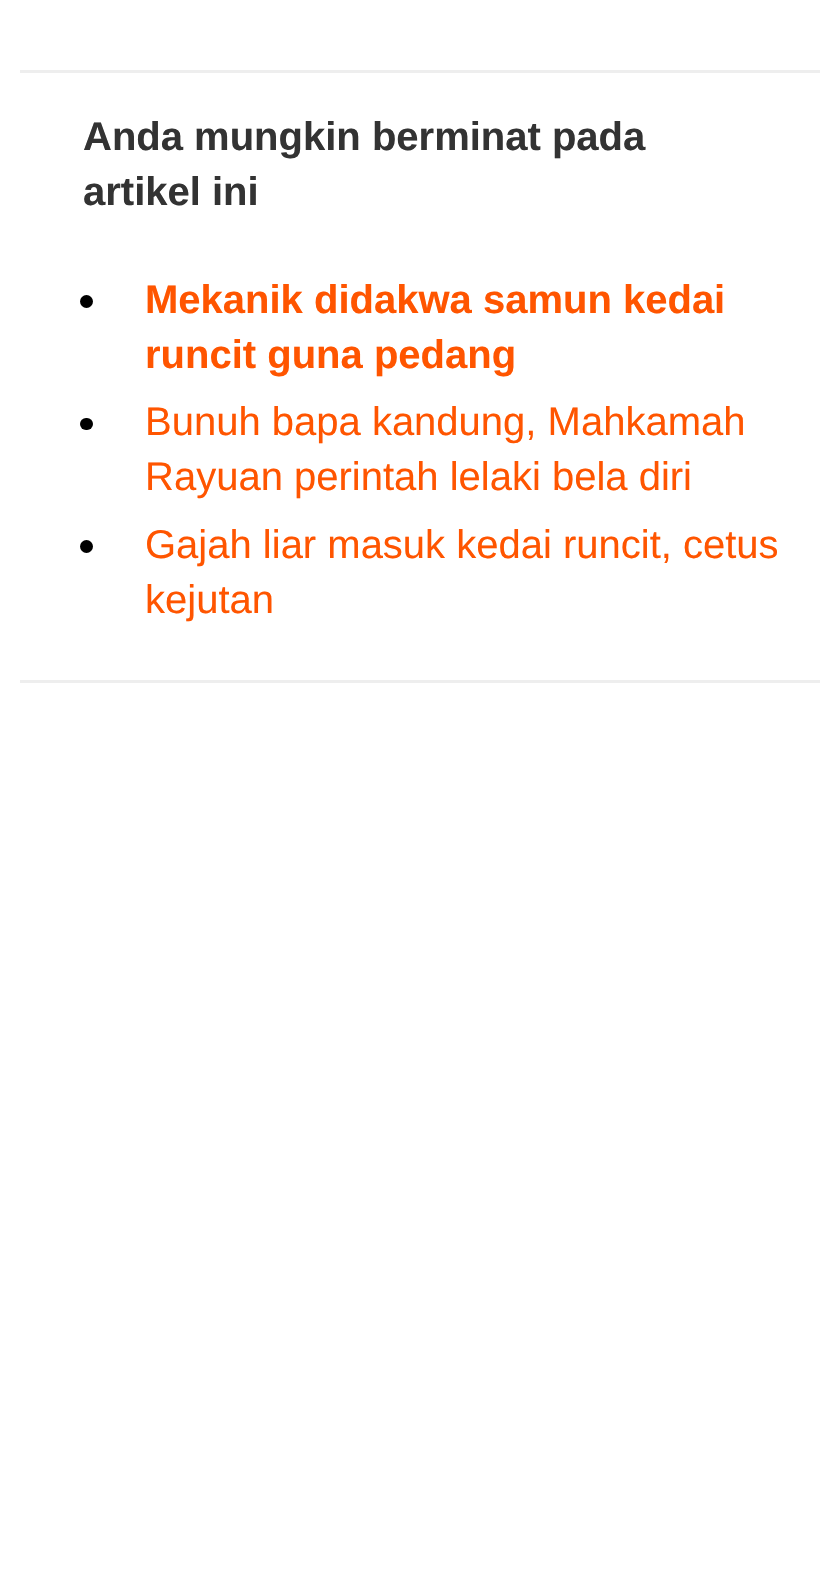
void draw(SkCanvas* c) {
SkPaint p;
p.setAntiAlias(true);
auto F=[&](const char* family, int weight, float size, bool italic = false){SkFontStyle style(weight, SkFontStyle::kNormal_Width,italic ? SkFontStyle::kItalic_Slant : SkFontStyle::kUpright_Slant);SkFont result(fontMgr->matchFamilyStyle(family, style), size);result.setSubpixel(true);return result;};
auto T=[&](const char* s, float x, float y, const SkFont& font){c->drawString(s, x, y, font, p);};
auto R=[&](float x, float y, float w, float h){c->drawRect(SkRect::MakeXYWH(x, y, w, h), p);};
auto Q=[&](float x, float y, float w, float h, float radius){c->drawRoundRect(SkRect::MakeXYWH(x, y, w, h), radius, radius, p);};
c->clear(0xffffffff);
p.setColor(0xffeeeeee);
R(20,70,800,3);
auto f1 = F("Arimo",700,40);
p.setColor(0xff333333);
T("Anda mungkin berminat pada",83,150,f1);
T("artikel ini",83,205,f1);
p.setColor(0xff000000);
c->drawCircle(86.5,301.5,6.5,p);
p.setColor(0xffff5500);
T("Mekanik didakwa samun kedai",145,313,f1);
T("runcit guna pedang",145,368,f1);
p.setColor(0xff000000);
Q(80,418,13,12,6);
auto f2 = F("Arimo",400,40);
p.setColor(0xffff5500);
T("Bunuh bapa kandung, Mahkamah",145,435,f2);
T("Rayuan perintah lelaki bela diri",145,490,f2);
p.setColor(0xff000000);
c->drawCircle(86.5,546.5,6.5,p);
p.setColor(0xffff5500);
T("Gajah liar masuk kedai runcit, cetus",145,558,f2);
T("kejutan",145,613,f2);
p.setColor(0xffeeeeee);
R(20,680,800,3);
}
